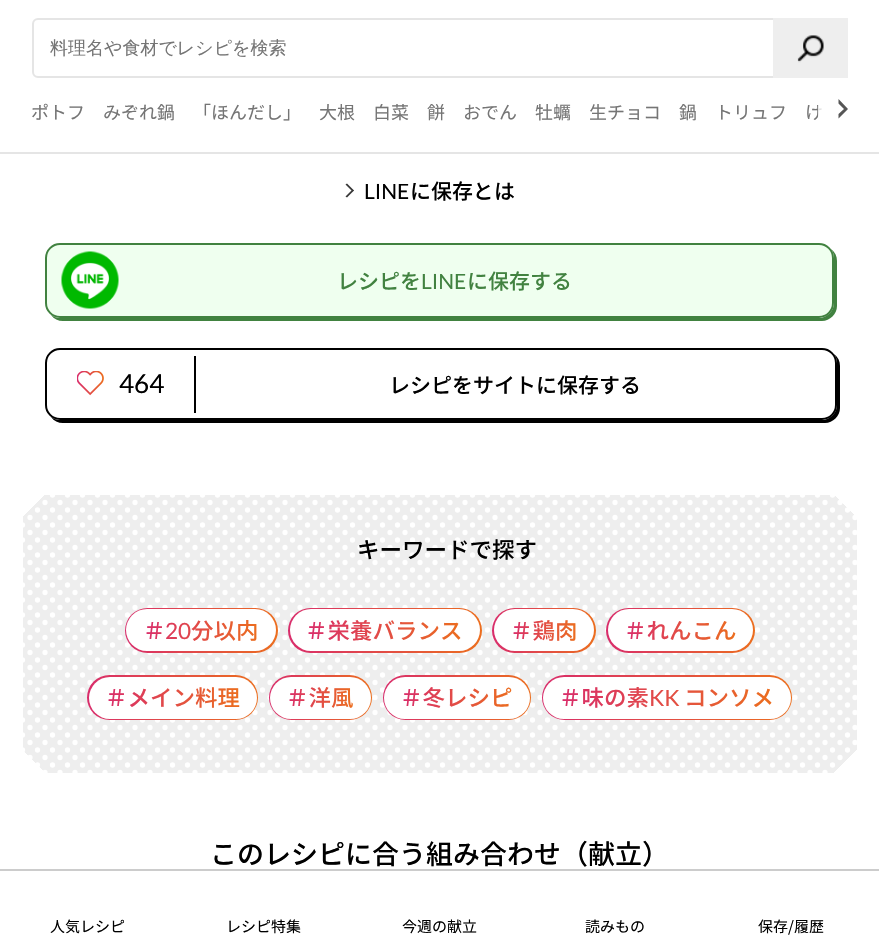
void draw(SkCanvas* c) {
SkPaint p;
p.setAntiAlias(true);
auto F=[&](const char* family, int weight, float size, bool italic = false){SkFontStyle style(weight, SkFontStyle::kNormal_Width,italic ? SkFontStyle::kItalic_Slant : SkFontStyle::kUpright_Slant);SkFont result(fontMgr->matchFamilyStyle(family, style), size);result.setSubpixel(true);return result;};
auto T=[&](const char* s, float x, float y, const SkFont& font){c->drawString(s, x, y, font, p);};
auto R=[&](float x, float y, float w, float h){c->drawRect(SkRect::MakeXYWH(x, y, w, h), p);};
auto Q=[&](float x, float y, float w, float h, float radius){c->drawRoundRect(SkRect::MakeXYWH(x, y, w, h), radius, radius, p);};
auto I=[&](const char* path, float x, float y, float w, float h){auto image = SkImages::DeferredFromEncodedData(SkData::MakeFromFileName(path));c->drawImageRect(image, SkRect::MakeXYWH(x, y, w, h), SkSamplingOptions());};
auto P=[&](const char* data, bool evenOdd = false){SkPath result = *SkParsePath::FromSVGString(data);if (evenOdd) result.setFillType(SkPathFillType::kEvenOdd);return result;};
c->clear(0xffffffff);
p.setColor(0xffe5e5e5);
R(0,152,879,2);
p.setStroke(true);
p.setStrokeWidth(2);
c->drawRoundRect(SkRect::MakeXYWH(33,19,814,58),5,5,p);
auto f1 = F("WenQuanYi Zen Hei",500,18);
p.setStroke(false);
p.setColor(0xff757575);
T("料理名や食材でレシピを検索",50,54,f1);
p.setColor(0xffeeeeee);
R(773,18,75,60);
I("1.png",797,35,27,28);
auto f2 = F("Noto Sans JP",400,18);
p.setColor(0xff757575);
T("ポトフ",31,119,f2);
T("みぞれ鍋",103,119,f2);
T("「ほんだし」",193,119,f2);
T("大根",319,119,f2);
T("白菜",373,119,f2);
T("餅",427,119,f2);
T("おでん",463,119,f2);
T("牡蠣",535,119,f2);
T("生チョコ",589,119,f2);
T("鍋",679,119,f2);
T("トリュフ",715,119,f2);
T("け",805,119,f2);
p.setColor(0xff565656);
c->drawPath(P("M838.5 99l9.5 10h-4l-5.5-5.5zm9.5 10l-9.5 9.5v-4.5l5.5-5z"),p);
p.setColor(0xccffffff);
R(818,105,4,12);
p.setColor(0xff383838);
c->drawPath(P("M347 183.5l7 7l-1.5 1l-7-7z"),p);
c->drawPath(P("M352.5 189.5l1.5 1l-7 7l-1.5-1z"),p);
auto f3 = F("Lato",400,21);
p.setColor(0xff000000);
T("LINE",364,199,f3);
auto f4 = F("Noto Sans JP",500,21);
T("に保存とは",410,199,f4);
p.setColor(0xff418240);
c->drawPath(P("M51 315c3 4 7 6 12 6h759c8 0 15-7 15-15v-45c0-5-2-9-6-12c2 3 3 6 3 9v45c0 8-7 15-15 15h-759c-3 0-6-1-9-3z"),p);
p.setColor(0xffefffef);
c->drawRoundRect(SkRect::MakeXYWH(46,244,787,73),14,14,p);
p.setStroke(true);
p.setColor(0xff418240);
c->drawRoundRect(SkRect::MakeXYWH(46,244,787,73),14,14,p);
I("2.png",61,251,58,58);
p.setStroke(false);
T("レシピを",337,289,f4);
T("LINE",421,289,f3);
T("に保存する",467,289,f4);
p.setColor(0xff000000);
c->drawPath(P("M51 417c3 4 7 6 12 6h762c8 0 15-7 15-15v-42c0-5-2-9-6-12c2 3 3 6 3 9v42c0 8-7 15-15 15h-762c-3 0-6-1-9-3z"),p);
p.setColor(0xffffffff);
c->drawRoundRect(SkRect::MakeXYWH(46,349,790,70),14,14,p);
p.setStroke(true);
p.setColor(0xff000000);
c->drawRoundRect(SkRect::MakeXYWH(46,349,790,70),14,14,p);
I("3.png",77,371,27,25);
auto f5 = F("Lato",400,26);
p.setStroke(false);
T("464",119,393,f5);
R(194,356,2,57);
T("レシピをサイトに保存する",389,393,f4);
p.setColor(0xffeeeeee);
R(23,495,834,278);
p.setStroke(true);
p.setStrokeWidth(5.3);
p.setStrokeCap(SkPaint::kRound_Cap);
p.setColor(0xffffffff);
p.setPathEffect(SkDashPathEffect::Make({{0,15}}, 0));
c->drawPath(P("M22.5 495h825.3"),p);
p.setPathEffect(nullptr);
p.setPathEffect(SkDashPathEffect::Make({{0,15}}, 0));
c->drawPath(P("M22.5 510h825.3"),p);
p.setPathEffect(nullptr);
p.setPathEffect(SkDashPathEffect::Make({{0,15}}, 0));
c->drawPath(P("M22.5 525h825.3"),p);
p.setPathEffect(nullptr);
p.setPathEffect(SkDashPathEffect::Make({{0,15}}, 0));
c->drawPath(P("M22.5 540h825.3"),p);
p.setPathEffect(nullptr);
p.setPathEffect(SkDashPathEffect::Make({{0,15}}, 0));
c->drawPath(P("M22.5 555h825.3"),p);
p.setPathEffect(nullptr);
p.setPathEffect(SkDashPathEffect::Make({{0,15}}, 0));
c->drawPath(P("M22.5 570h825.3"),p);
p.setPathEffect(nullptr);
p.setPathEffect(SkDashPathEffect::Make({{0,15}}, 0));
c->drawPath(P("M22.5 585h825.3"),p);
p.setPathEffect(nullptr);
p.setPathEffect(SkDashPathEffect::Make({{0,15}}, 0));
c->drawPath(P("M22.5 600h825.3"),p);
p.setPathEffect(nullptr);
p.setPathEffect(SkDashPathEffect::Make({{0,15}}, 0));
c->drawPath(P("M22.5 615h825.3"),p);
p.setPathEffect(nullptr);
p.setPathEffect(SkDashPathEffect::Make({{0,15}}, 0));
c->drawPath(P("M22.5 630h825.3"),p);
p.setPathEffect(nullptr);
p.setPathEffect(SkDashPathEffect::Make({{0,15}}, 0));
c->drawPath(P("M22.5 645h825.3"),p);
p.setPathEffect(nullptr);
p.setPathEffect(SkDashPathEffect::Make({{0,15}}, 0));
c->drawPath(P("M22.5 660h825.3"),p);
p.setPathEffect(nullptr);
p.setPathEffect(SkDashPathEffect::Make({{0,15}}, 0));
c->drawPath(P("M22.5 675h825.3"),p);
p.setPathEffect(nullptr);
p.setPathEffect(SkDashPathEffect::Make({{0,15}}, 0));
c->drawPath(P("M22.5 690h825.3"),p);
p.setPathEffect(nullptr);
p.setPathEffect(SkDashPathEffect::Make({{0,15}}, 0));
c->drawPath(P("M22.5 705h825.3"),p);
p.setPathEffect(nullptr);
p.setPathEffect(SkDashPathEffect::Make({{0,15}}, 0));
c->drawPath(P("M22.5 720h825.3"),p);
p.setPathEffect(nullptr);
p.setPathEffect(SkDashPathEffect::Make({{0,15}}, 0));
c->drawPath(P("M22.5 735h825.3"),p);
p.setPathEffect(nullptr);
p.setPathEffect(SkDashPathEffect::Make({{0,15}}, 0));
c->drawPath(P("M22.5 750h825.3"),p);
p.setPathEffect(nullptr);
p.setPathEffect(SkDashPathEffect::Make({{0,15}}, 0));
c->drawPath(P("M22.5 765h825.3"),p);
p.setPathEffect(nullptr);
p.setPathEffect(SkDashPathEffect::Make({{0,15}}, 0));
c->drawPath(P("M30 502.5h825.3"),p);
p.setPathEffect(nullptr);
p.setPathEffect(SkDashPathEffect::Make({{0,15}}, 0));
c->drawPath(P("M30 517.5h825.3"),p);
p.setPathEffect(nullptr);
p.setPathEffect(SkDashPathEffect::Make({{0,15}}, 0));
c->drawPath(P("M30 532.5h825.3"),p);
p.setPathEffect(nullptr);
p.setPathEffect(SkDashPathEffect::Make({{0,15}}, 0));
c->drawPath(P("M30 547.5h825.3"),p);
p.setPathEffect(nullptr);
p.setPathEffect(SkDashPathEffect::Make({{0,15}}, 0));
c->drawPath(P("M30 562.5h825.3"),p);
p.setPathEffect(nullptr);
p.setPathEffect(SkDashPathEffect::Make({{0,15}}, 0));
c->drawPath(P("M30 577.5h825.3"),p);
p.setPathEffect(nullptr);
p.setPathEffect(SkDashPathEffect::Make({{0,15}}, 0));
c->drawPath(P("M30 592.5h825.3"),p);
p.setPathEffect(nullptr);
p.setPathEffect(SkDashPathEffect::Make({{0,15}}, 0));
c->drawPath(P("M30 607.5h825.3"),p);
p.setPathEffect(nullptr);
p.setPathEffect(SkDashPathEffect::Make({{0,15}}, 0));
c->drawPath(P("M30 622.5h825.3"),p);
p.setPathEffect(nullptr);
p.setPathEffect(SkDashPathEffect::Make({{0,15}}, 0));
c->drawPath(P("M30 637.5h825.3"),p);
p.setPathEffect(nullptr);
p.setPathEffect(SkDashPathEffect::Make({{0,15}}, 0));
c->drawPath(P("M30 652.5h825.3"),p);
p.setPathEffect(nullptr);
p.setPathEffect(SkDashPathEffect::Make({{0,15}}, 0));
c->drawPath(P("M30 667.5h825.3"),p);
p.setPathEffect(nullptr);
p.setPathEffect(SkDashPathEffect::Make({{0,15}}, 0));
c->drawPath(P("M30 682.5h825.3"),p);
p.setPathEffect(nullptr);
p.setPathEffect(SkDashPathEffect::Make({{0,15}}, 0));
c->drawPath(P("M30 697.5h825.3"),p);
p.setPathEffect(nullptr);
p.setPathEffect(SkDashPathEffect::Make({{0,15}}, 0));
c->drawPath(P("M30 712.5h825.3"),p);
p.setPathEffect(nullptr);
p.setPathEffect(SkDashPathEffect::Make({{0,15}}, 0));
c->drawPath(P("M30 727.5h825.3"),p);
p.setPathEffect(nullptr);
p.setPathEffect(SkDashPathEffect::Make({{0,15}}, 0));
c->drawPath(P("M30 742.5h825.3"),p);
p.setPathEffect(nullptr);
p.setPathEffect(SkDashPathEffect::Make({{0,15}}, 0));
c->drawPath(P("M30 757.5h825.3"),p);
p.setPathEffect(nullptr);
p.setPathEffect(SkDashPathEffect::Make({{0,15}}, 0));
c->drawPath(P("M30 772.5h825.3"),p);
p.setPathEffect(nullptr);
p.setStroke(false);
{
const SkColor colors[] = {0xffffffff,0x00ffffff};
const float stops[] = {.04,.04};
const SkPoint ends[] = {{787,842}, {509,564}};
p.setShader(SkGradientShader::MakeLinear(ends, colors, stops, 2, SkTileMode::kClamp));
p.setAlpha(255);
}
R(834,750,23,23);
{
const SkColor colors[] = {0xffffffff,0x00ffffff};
const float stops[] = {.04,.04};
const SkPoint ends[] = {{787,425}, {509,703}};
p.setShader(SkGradientShader::MakeLinear(ends, colors, stops, 2, SkTileMode::kClamp));
p.setAlpha(255);
}
R(835,495,22,21);
{
const SkColor colors[] = {0xffffffff,0x00ffffff};
const float stops[] = {.04,.04};
const SkPoint ends[] = {{92,425}, {370,703}};
p.setShader(SkGradientShader::MakeLinear(ends, colors, stops, 2, SkTileMode::kClamp));
p.setAlpha(255);
}
R(23,495,21,21);
{
const SkColor colors[] = {0xffffffff,0x00ffffff};
const float stops[] = {.04,.04};
const SkPoint ends[] = {{92,842}, {370,564}};
p.setShader(SkGradientShader::MakeLinear(ends, colors, stops, 2, SkTileMode::kClamp));
p.setAlpha(255);
}
R(23,752,20,21);
auto f6 = F("Noto Sans JP",500,22.5);
p.setShader(nullptr);
p.setColor(0xff000000);
T("キーワードで探す",357,558,f6);
{
const SkColor colors[] = {0xffd92c6b,0xffec6e1e};
const float stops[] = {0,1};
const SkPoint ends[] = {{125,630}, {278,630}};
p.setShader(SkGradientShader::MakeLinear(ends, colors, stops, 2, SkTileMode::kClamp));
p.setAlpha(255);
}
Q(125,608,153,45,22.5);
p.setShader(nullptr);
p.setColor(0xffffffff);
Q(126,609,150,42,21);
{
const SkColor colors[] = {0xffd92c6b,0xffec6e1e};
const float stops[] = {0,1};
const SkPoint ends[] = {{143,630}, {259,630}};
p.setShader(SkGradientShader::MakeLinear(ends, colors, stops, 2, SkTileMode::kClamp));
p.setAlpha(255);
}
T("＃",143,639,f6);
auto f7 = F("Lato",400,22.5);
T("20",165,639,f7);
T("分以内",191,639,f6);
{
const SkColor colors[] = {0xffd92c6b,0xffec6e1e};
const float stops[] = {0,1};
const SkPoint ends[] = {{288,630}, {482,630}};
p.setShader(SkGradientShader::MakeLinear(ends, colors, stops, 2, SkTileMode::kClamp));
p.setAlpha(255);
}
Q(288,608,194,45,22.5);
p.setShader(nullptr);
p.setColor(0xffffffff);
Q(290,609,190,42,21);
{
const SkColor colors[] = {0xffd92c6b,0xffec6e1e};
const float stops[] = {0,1};
const SkPoint ends[] = {{305,630}, {463,630}};
p.setShader(SkGradientShader::MakeLinear(ends, colors, stops, 2, SkTileMode::kClamp));
p.setAlpha(255);
}
T("＃栄養バランス",305,639,f6);
{
const SkColor colors[] = {0xffd92c6b,0xffec6e1e};
const float stops[] = {0,1};
const SkPoint ends[] = {{492,630}, {596,630}};
p.setShader(SkGradientShader::MakeLinear(ends, colors, stops, 2, SkTileMode::kClamp));
p.setAlpha(255);
}
Q(492,608,104,45,22.5);
p.setShader(nullptr);
p.setColor(0xffffffff);
Q(494,609,100,42,21);
{
const SkColor colors[] = {0xffd92c6b,0xffec6e1e};
const float stops[] = {0,1};
const SkPoint ends[] = {{510,630}, {577,630}};
p.setShader(SkGradientShader::MakeLinear(ends, colors, stops, 2, SkTileMode::kClamp));
p.setAlpha(255);
}
T("＃鶏肉",510,639,f6);
{
const SkColor colors[] = {0xffd92c6b,0xffec6e1e};
const float stops[] = {0,1};
const SkPoint ends[] = {{606,630}, {755,630}};
p.setShader(SkGradientShader::MakeLinear(ends, colors, stops, 2, SkTileMode::kClamp));
p.setAlpha(255);
}
Q(606,608,149,45,22.5);
p.setShader(nullptr);
p.setColor(0xffffffff);
Q(608,609,145,42,21);
{
const SkColor colors[] = {0xffd92c6b,0xffec6e1e};
const float stops[] = {0,1};
const SkPoint ends[] = {{624,630}, {736,630}};
p.setShader(SkGradientShader::MakeLinear(ends, colors, stops, 2, SkTileMode::kClamp));
p.setAlpha(255);
}
T("＃れんこん",624,639,f6);
{
const SkColor colors[] = {0xffd92c6b,0xffec6e1e};
const float stops[] = {0,1};
const SkPoint ends[] = {{87,698}, {258,698}};
p.setShader(SkGradientShader::MakeLinear(ends, colors, stops, 2, SkTileMode::kClamp));
p.setAlpha(255);
}
Q(87,675,171,45,22.5);
p.setShader(nullptr);
p.setColor(0xffffffff);
Q(89,677,168,42,21);
{
const SkColor colors[] = {0xffd92c6b,0xffec6e1e};
const float stops[] = {0,1};
const SkPoint ends[] = {{105,697}, {240,697}};
p.setShader(SkGradientShader::MakeLinear(ends, colors, stops, 2, SkTileMode::kClamp));
p.setAlpha(255);
}
T("＃メイン料理",105,706,f6);
{
const SkColor colors[] = {0xffd92c6b,0xffec6e1e};
const float stops[] = {0,1};
const SkPoint ends[] = {{269,698}, {372,698}};
p.setShader(SkGradientShader::MakeLinear(ends, colors, stops, 2, SkTileMode::kClamp));
p.setAlpha(255);
}
Q(269,675,103,45,22.5);
p.setShader(nullptr);
p.setColor(0xffffffff);
Q(270,677,101,42,21);
{
const SkColor colors[] = {0xffd92c6b,0xffec6e1e};
const float stops[] = {0,1};
const SkPoint ends[] = {{286,697}, {354,697}};
p.setShader(SkGradientShader::MakeLinear(ends, colors, stops, 2, SkTileMode::kClamp));
p.setAlpha(255);
}
T("＃洋風",286,706,f6);
{
const SkColor colors[] = {0xffd92c6b,0xffec6e1e};
const float stops[] = {0,1};
const SkPoint ends[] = {{383,698}, {531,698}};
p.setShader(SkGradientShader::MakeLinear(ends, colors, stops, 2, SkTileMode::kClamp));
p.setAlpha(255);
}
Q(383,675,148,45,22.5);
p.setShader(nullptr);
p.setColor(0xffffffff);
Q(384,677,146,42,21);
{
const SkColor colors[] = {0xffd92c6b,0xffec6e1e};
const float stops[] = {0,1};
const SkPoint ends[] = {{400,697}, {513,697}};
p.setShader(SkGradientShader::MakeLinear(ends, colors, stops, 2, SkTileMode::kClamp));
p.setAlpha(255);
}
T("＃冬レシピ",400,706,f6);
{
const SkColor colors[] = {0xffd92c6b,0xffec6e1e};
const float stops[] = {0,1};
const SkPoint ends[] = {{542,698}, {792,698}};
p.setShader(SkGradientShader::MakeLinear(ends, colors, stops, 2, SkTileMode::kClamp));
p.setAlpha(255);
}
Q(542,675,250,45,22.5);
p.setShader(nullptr);
p.setColor(0xffffffff);
Q(543,677,248,42,21);
{
const SkColor colors[] = {0xffd92c6b,0xffec6e1e};
const float stops[] = {0,1};
const SkPoint ends[] = {{559,697}, {774,697}};
p.setShader(SkGradientShader::MakeLinear(ends, colors, stops, 2, SkTileMode::kClamp));
p.setAlpha(255);
}
T("＃味の素",559,706,f6);
T("KK",649,706,f7);
T("コンソメ",684,706,f6);
auto f8 = F("Noto Sans JP",500,27);
p.setShader(nullptr);
p.setColor(0xff000000);
T("このレシピに合う組み合わせ（献立）",210,864,f8);
p.setColor(0xffcccccc);
R(0,869,879,2);
auto f9 = F("Noto Sans JP",400,15);
p.setColor(0xff000000);
T("人気レシピ",50,932,f9);
T("レシピ特集",226,932,f9);
T("今週の献立",402,932,f9);
T("読みもの",585,932,f9);
T("保存/履歴",758,932,f9);
}
